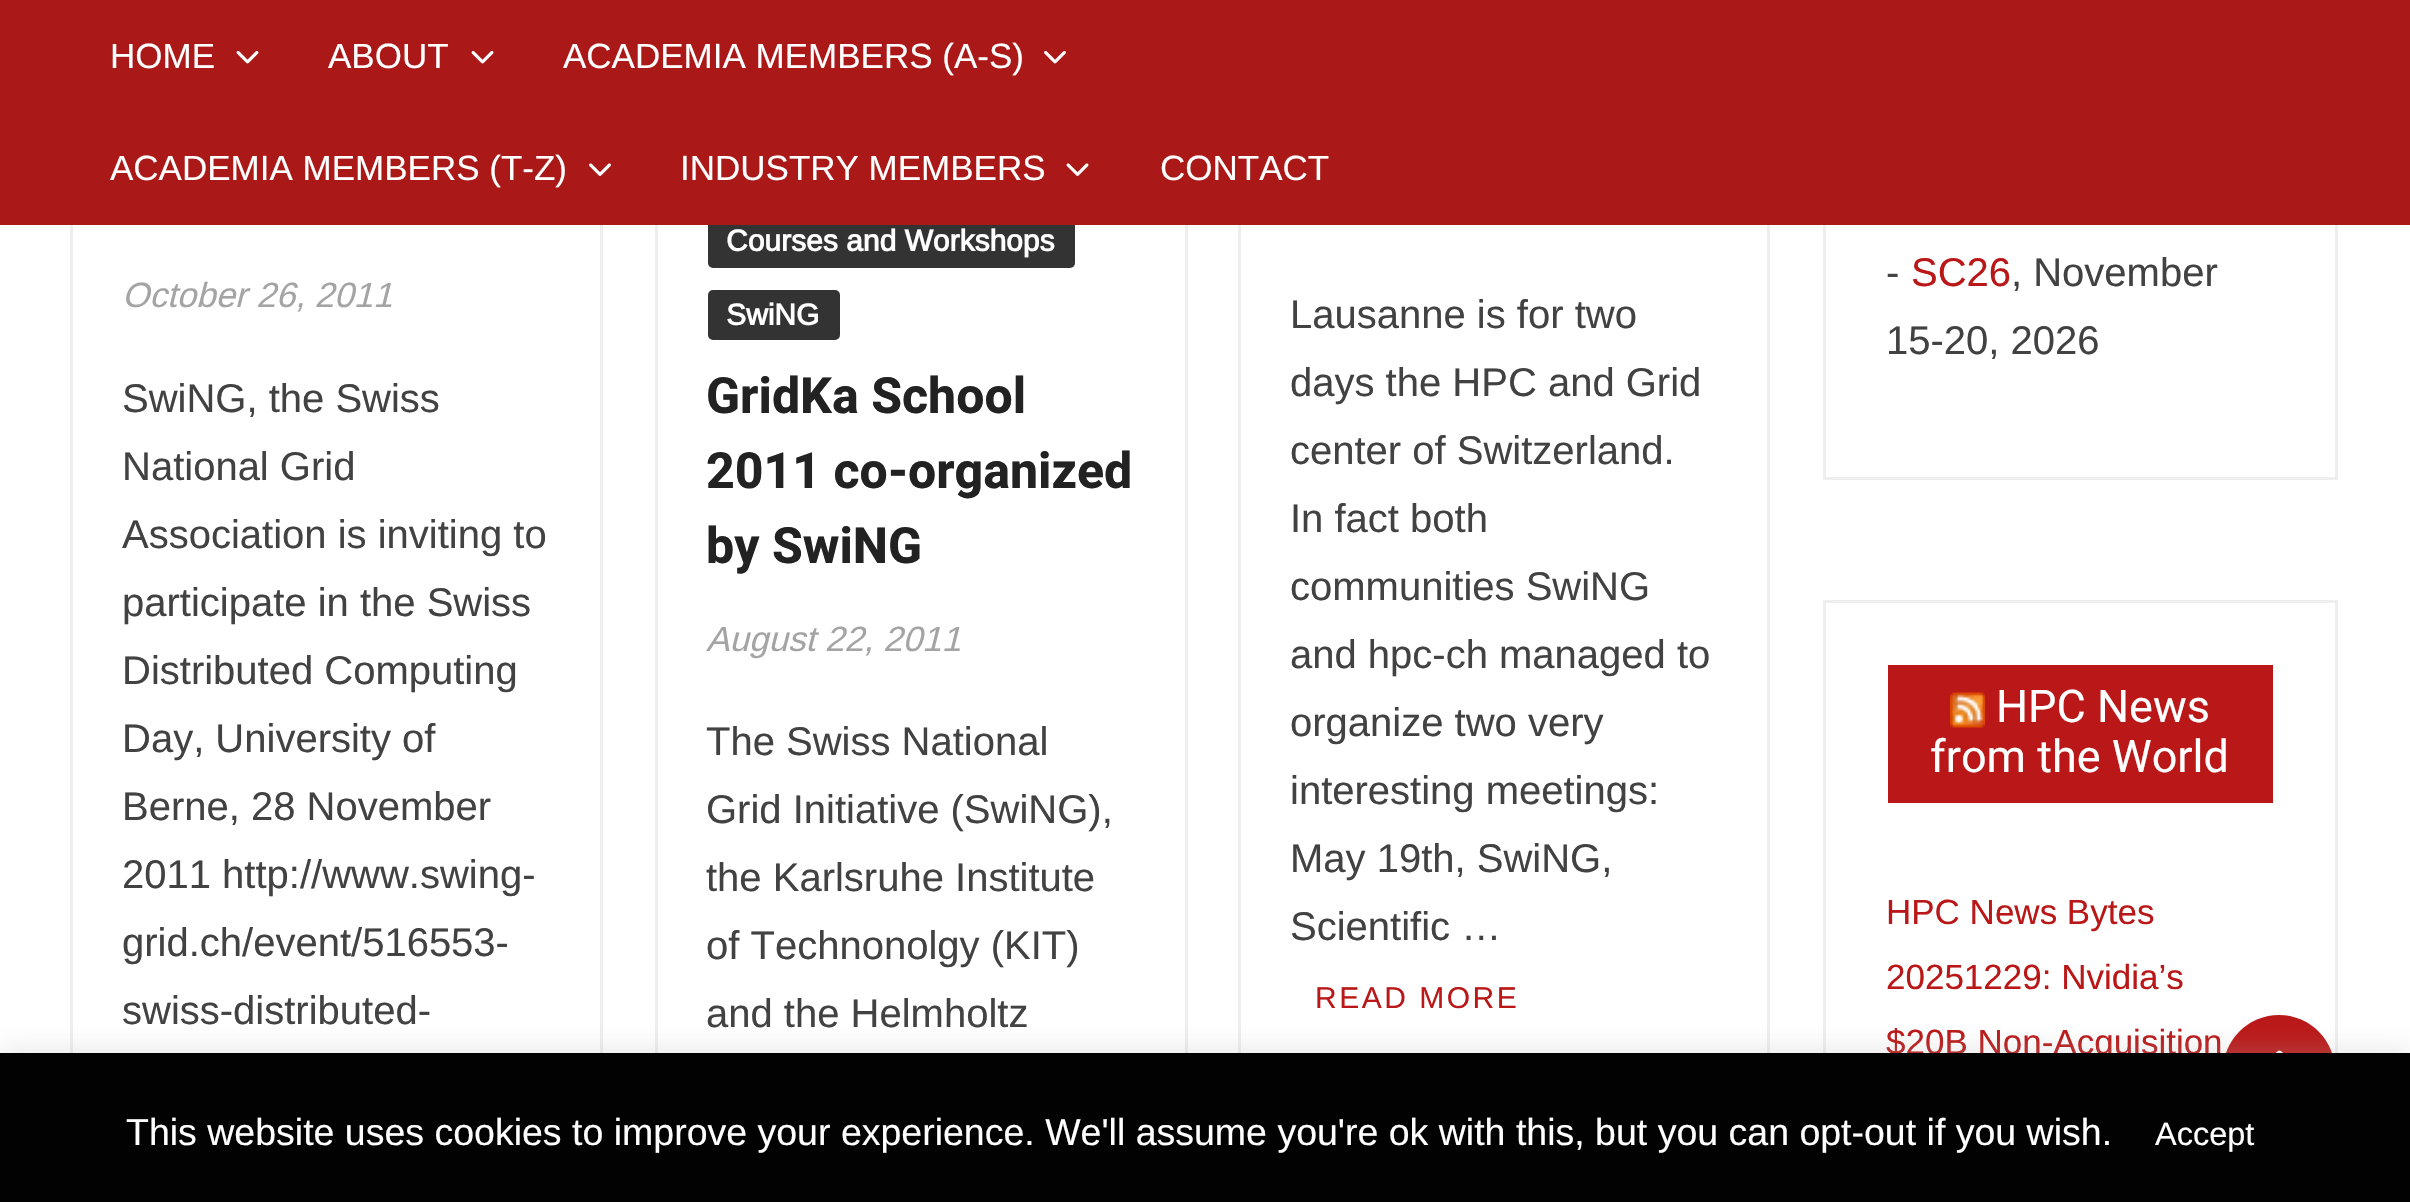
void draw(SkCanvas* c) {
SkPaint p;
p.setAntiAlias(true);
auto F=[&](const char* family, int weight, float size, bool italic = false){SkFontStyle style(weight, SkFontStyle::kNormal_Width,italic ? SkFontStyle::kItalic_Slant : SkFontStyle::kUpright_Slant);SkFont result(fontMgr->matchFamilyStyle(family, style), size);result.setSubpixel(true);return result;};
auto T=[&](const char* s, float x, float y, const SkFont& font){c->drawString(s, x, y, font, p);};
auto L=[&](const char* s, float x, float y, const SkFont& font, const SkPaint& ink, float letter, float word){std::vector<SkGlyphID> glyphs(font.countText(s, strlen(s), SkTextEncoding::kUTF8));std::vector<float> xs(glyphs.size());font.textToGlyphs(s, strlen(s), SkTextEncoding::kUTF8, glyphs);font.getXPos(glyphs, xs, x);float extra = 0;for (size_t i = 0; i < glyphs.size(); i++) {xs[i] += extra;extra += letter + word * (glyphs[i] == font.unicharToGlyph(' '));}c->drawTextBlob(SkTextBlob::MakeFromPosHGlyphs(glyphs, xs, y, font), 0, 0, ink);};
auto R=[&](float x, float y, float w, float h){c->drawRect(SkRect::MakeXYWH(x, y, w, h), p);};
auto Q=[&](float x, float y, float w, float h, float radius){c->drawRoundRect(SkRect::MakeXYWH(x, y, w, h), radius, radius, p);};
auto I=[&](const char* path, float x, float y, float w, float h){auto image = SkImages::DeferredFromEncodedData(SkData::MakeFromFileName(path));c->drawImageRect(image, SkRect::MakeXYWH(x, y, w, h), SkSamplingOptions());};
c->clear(0xffffffff);
p.setStroke(true);
p.setStrokeWidth(3);
p.setColor(0xffeeeeee);
c->drawRect(SkRect::MakeXYWH(71.5,-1.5,530,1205),p);
c->drawRect(SkRect::MakeXYWH(656.5,164.5,530,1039),p);
p.setStroke(false);
p.setColor(0xff333333);
Q(708,218,367,50,5);
p.setStroke(true);
p.setColor(0xffeeeeee);
c->drawRect(SkRect::MakeXYWH(1239.5,-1.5,529,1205),p);
c->drawRect(SkRect::MakeXYWH(1824.5,-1.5,512,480),p);
p.setStroke(false);
p.setColor(0xffaa1818);
R(0,0,2410,225);
auto f1 = F("Arimo",400,35);
p.setColor(0xffffffff);
T("HOME",110,68,f1);
I("1.png",236,51,23,13);
T("ABOUT",328,68,f1);
I("1.png",471,51,23,13);
T("ACADEMIA MEMBERS (A-S)",563,68,f1);
I("2.png",1044,51,22,13);
T("ACADEMIA MEMBERS (T-Z)",110,180,f1);
I("3.png",589,163,22,13);
T("INDUSTRY MEMBERS",680,180,f1);
I("4.png",1066,163,23,13);
T("CONTACT",1160,180,f1);
auto f2 = F("Arimo",400,35,true);
p.setColor(0xffa4a4a4);
T("October 26, 2011",122,307,f2);
auto f3 = F("Arimo",400,40);
p.setColor(0xff424242);
T("SwiNG, the Swiss",122,412,f3);
T("National Grid",122,480,f3);
T("Association is inviting to",122,548,f3);
T("participate in the Swiss",122,616,f3);
T("Distributed Computing",122,684,f3);
T("Day, University of",122,752,f3);
T("Berne, 28 November",122,820,f3);
T("2011 http://www.swing-",122,888,f3);
T("grid.ch/event/516553-",122,956,f3);
T("swiss-distributed-",122,1024,f3);
auto f4 = F("Arimo",700,30);
p.setColor(0xffffffff);
T("Courses and Workshops",726,251,f4);
p.setColor(0xff333333);
Q(708,290,132,50,5);
p.setColor(0xffffffff);
T("SwiNG",726,325,f4);
auto f5 = F("Heebo",700,50);
p.setColor(0xff222222);
T("GridKa School",706,413,f5);
T("2011 co-organized",706,488,f5);
T("by SwiNG",706,563,f5);
p.setColor(0xffa4a4a4);
T("August 22, 2011",706,651,f2);
p.setColor(0xff424242);
T("The Swiss National",706,755,f3);
T("Grid Initiative (SwiNG),",706,823,f3);
T("the Karlsruhe Institute",706,891,f3);
T("of Technonolgy (KIT)",706,959,f3);
T("and the Helmholtz",706,1027,f3);
T("Lausanne is for two",1290,328,f3);
T("days the HPC and Grid",1290,396,f3);
T("center of Switzerland.",1290,464,f3);
T("In fact both",1290,532,f3);
T("communities SwiNG",1290,600,f3);
T("and hpc-ch managed to",1290,668,f3);
T("organize two very",1290,736,f3);
T("interesting meetings:",1290,804,f3);
T("May 19th, SwiNG,",1290,872,f3);
T("Scientific …",1290,940,f3);
auto f6 = F("Arimo",400,30);
p.setColor(0xffba1818);
L("READ MORE",1315,1008,f6,p,2.5,0);
p.setColor(0xff424242);
T("-",1886,286,f3);
p.setColor(0xffba1818);
T("SC26",1911,286,f3);
p.setColor(0xff424242);
T(", November",2011,286,f3);
T("15-20, 2026",1886,354,f3);
p.setStroke(true);
p.setColor(0xffeeeeee);
c->drawRect(SkRect::MakeXYWH(1824.5,601.5,512,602),p);
p.setStroke(false);
p.setColor(0xffba1818);
R(1888,665,385,138);
I("5.png",1950,692,35,36);
auto f7 = F("Heebo",400,45);
p.setColor(0xffffffff);
T("HPC News",1996,722,f7);
T("from the World",1930,772,f7);
p.setColor(0xffba1818);
T("HPC News Bytes",1886,924,f1);
T("20251229: Nvidia’s",1886,989,f1);
T("$20B Non-Acquisition",1886,1054,f1);
Q(2223,1015,112,113,56);
I("6.png",2275,1050,8,3);
p.setColor(0x4dacabab);
p.setMaskFilter(SkMaskFilter::MakeBlur(kNormal_SkBlurStyle, 12.5));
c->drawRect(SkRect::MakeXYWH(0,1050,2410,150),p);
p.setMaskFilter(nullptr);
p.setColor(0xff020202);
R(0,1053,2410,149);
auto f8 = F("Arimo",400,37.5);
p.setColor(0xffffffff);
T("This website uses cookies to improve your experience. We'll assume you're ok with this, but you can opt-out if you wish.",126,1145,f8);
auto f9 = F("Arimo",400,32.5);
T("Accept",2155,1145,f9);
}
